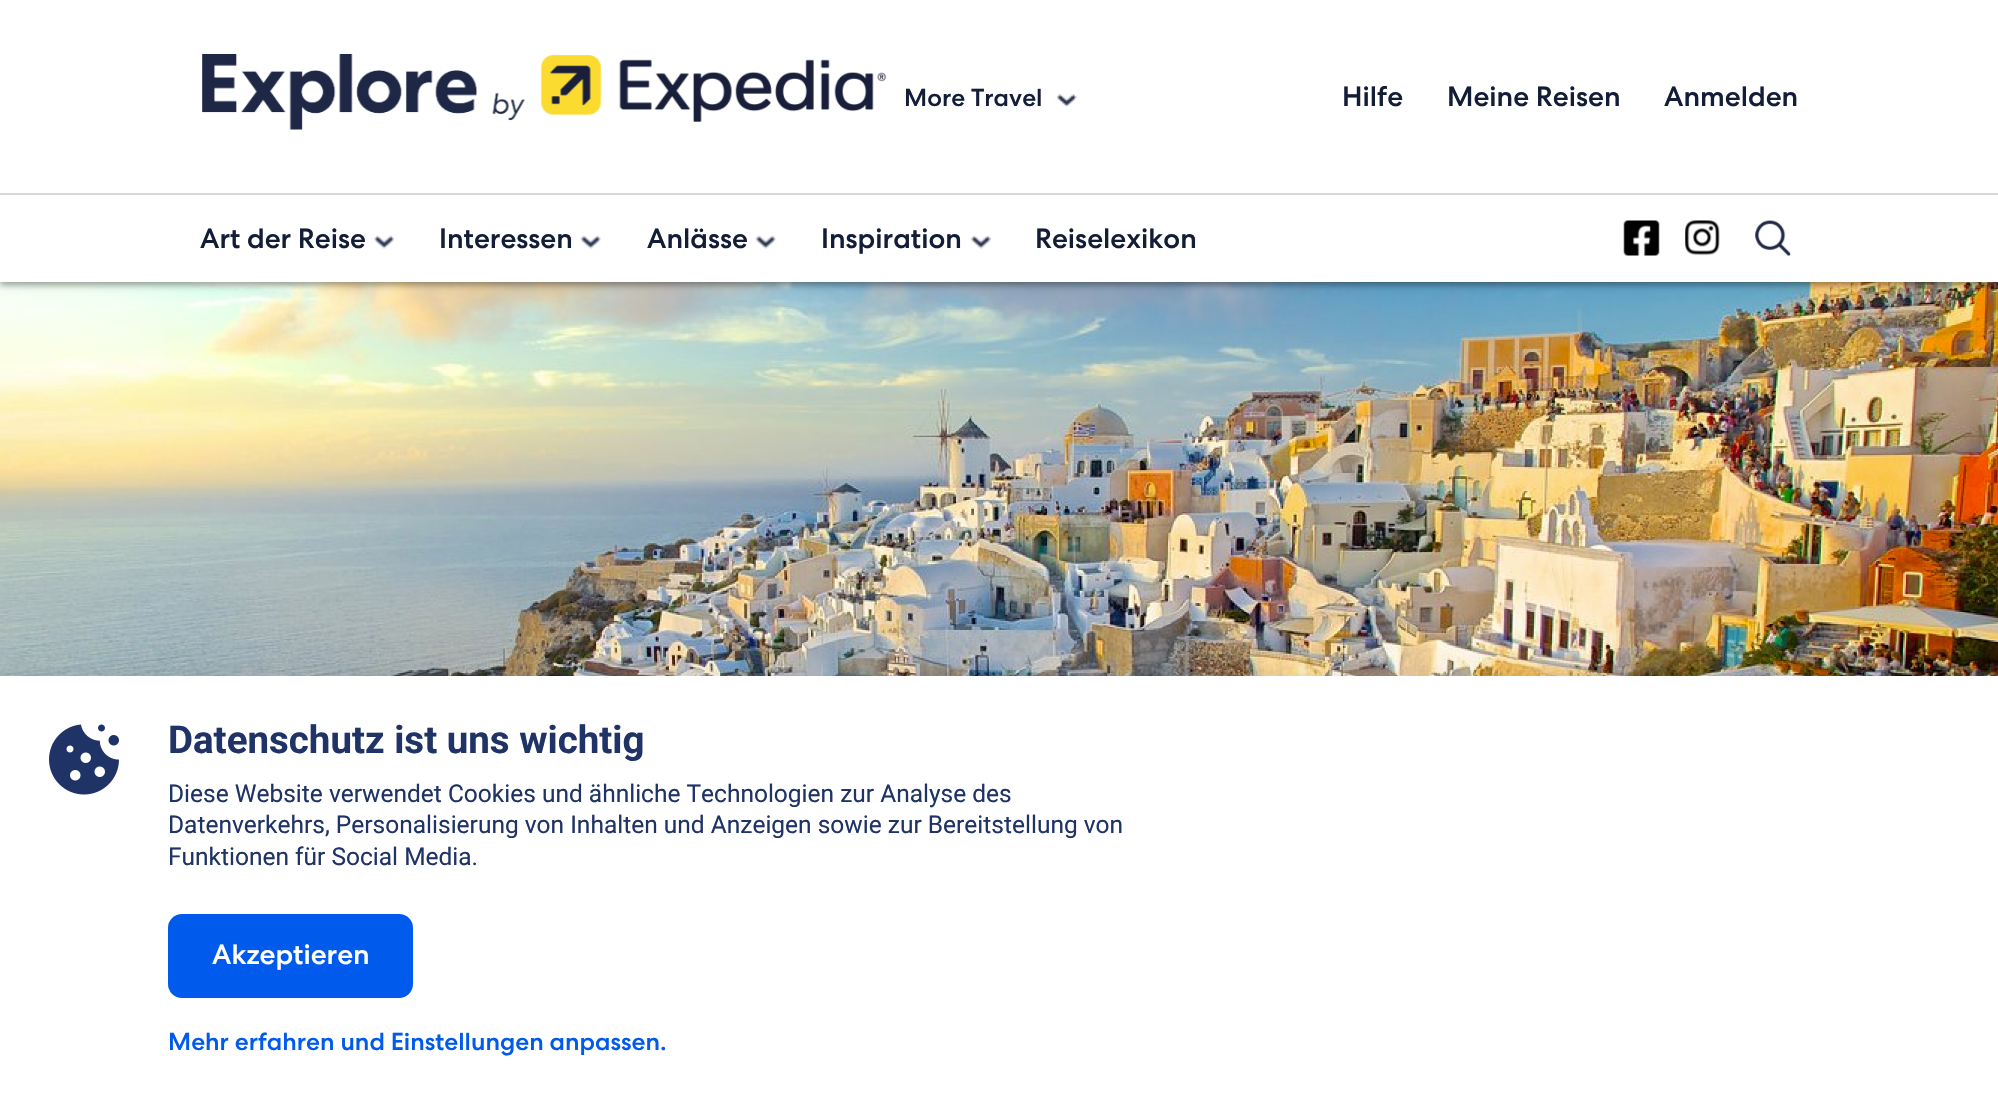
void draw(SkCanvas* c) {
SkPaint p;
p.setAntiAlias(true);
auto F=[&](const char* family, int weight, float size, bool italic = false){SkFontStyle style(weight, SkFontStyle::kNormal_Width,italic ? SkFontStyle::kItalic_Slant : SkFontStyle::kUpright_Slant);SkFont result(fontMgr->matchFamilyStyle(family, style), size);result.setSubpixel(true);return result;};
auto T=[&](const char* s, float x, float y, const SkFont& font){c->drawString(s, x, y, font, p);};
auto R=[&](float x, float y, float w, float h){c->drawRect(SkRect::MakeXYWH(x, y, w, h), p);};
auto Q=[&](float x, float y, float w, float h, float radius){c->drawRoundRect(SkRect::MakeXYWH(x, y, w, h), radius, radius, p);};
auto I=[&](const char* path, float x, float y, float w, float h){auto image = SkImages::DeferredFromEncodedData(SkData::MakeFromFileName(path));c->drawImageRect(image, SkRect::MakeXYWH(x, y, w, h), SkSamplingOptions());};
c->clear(0xffffffff);
I("10.png",0,282,1998,394);
p.setColor(0x66000000);
p.setMaskFilter(SkMaskFilter::MakeBlur(kNormal_SkBlurStyle, 3.5));
c->drawRect(SkRect::MakeXYWH(0,4,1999,281),p);
p.setMaskFilter(nullptr);
p.setColor(0xffffffff);
R(0,0,1998,282);
p.setColor(0xffd7d7d7);
R(0,193,1998,2);
I("1.png",202,54,684,76);
auto f1 = F("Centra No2",500,24.5);
p.setColor(0xff141d38);
T("More Travel",904,106,f1);
I("2.png",1057,94,20,13);
auto f2 = F("Centra No2",500,28);
T("Hilfe",1342,106,f2);
T("Meine Reisen",1447,106,f2);
T("Anmelden",1664,106,f2);
T("Art der Reise",200,248,f2);
I("3.png",374,235,20,14);
T("Interessen",439,248,f2);
I("4.png",580,235,21,14);
T("Anlässe",647,248,f2);
I("5.png",755,235,21,14);
T("Inspiration",821,248,f2);
I("6.png",970,235,21,14);
T("Reiselexikon",1035,248,f2);
I("7.png",1623,220,37,36);
I("8.png",1685,220,35,36);
I("9.png",1755,220,36,36);
p.setColor(0x3d000b26);
p.setMaskFilter(SkMaskFilter::MakeBlur(kNormal_SkBlurStyle, 14));
c->drawRect(SkRect::MakeXYWH(0,690,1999,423),p);
p.setMaskFilter(nullptr);
p.setColor(0xffffffff);
R(0,676,1998,422);
I("11.png",49,724,70,71);
auto f3 = F("Roboto",700,38.5);
p.setColor(0xff1f3366);
T("Datenschutz ist uns wichtig",168,753,f3);
auto f4 = F("Roboto",400,24.5);
T("Diese Website verwendet Cookies und ähnliche Technologien zur Analyse des",168,802,f4);
T("Datenverkehrs, Personalisierung von Inhalten und Anzeigen sowie zur Bereitstellung von",168,833,f4);
T("Funktionen für Social Media.",168,865,f4);
p.setColor(0xff005aeb);
Q(168,914,245,84,14);
p.setColor(0xffffffff);
T("Akzeptieren",212,964,f2);
p.setColor(0xff005aeb);
T("Mehr erfahren und Einstellungen anpassen.",168,1050,f1);
}
